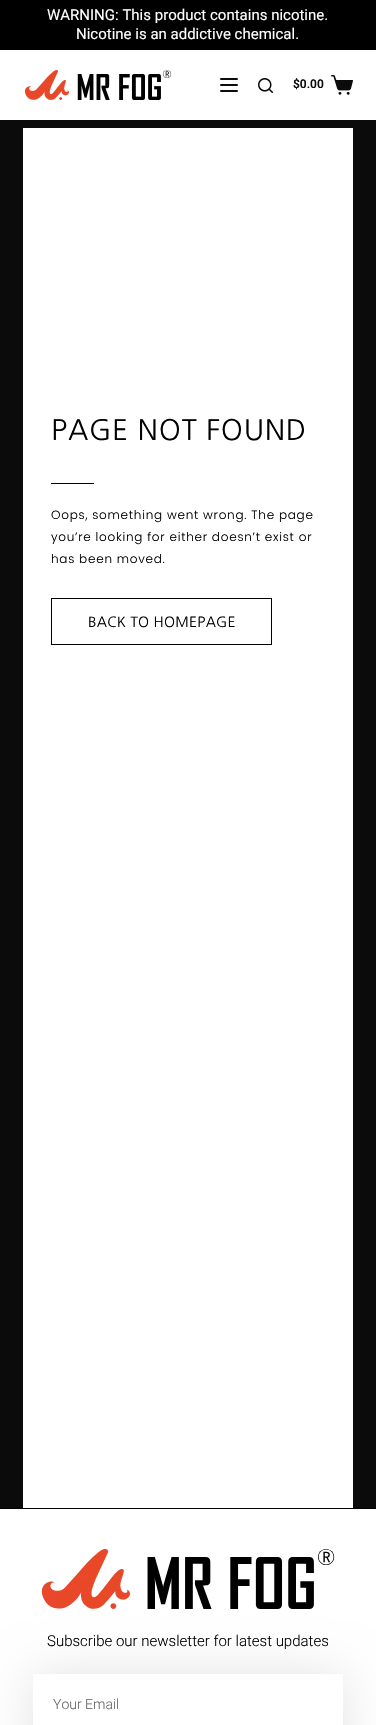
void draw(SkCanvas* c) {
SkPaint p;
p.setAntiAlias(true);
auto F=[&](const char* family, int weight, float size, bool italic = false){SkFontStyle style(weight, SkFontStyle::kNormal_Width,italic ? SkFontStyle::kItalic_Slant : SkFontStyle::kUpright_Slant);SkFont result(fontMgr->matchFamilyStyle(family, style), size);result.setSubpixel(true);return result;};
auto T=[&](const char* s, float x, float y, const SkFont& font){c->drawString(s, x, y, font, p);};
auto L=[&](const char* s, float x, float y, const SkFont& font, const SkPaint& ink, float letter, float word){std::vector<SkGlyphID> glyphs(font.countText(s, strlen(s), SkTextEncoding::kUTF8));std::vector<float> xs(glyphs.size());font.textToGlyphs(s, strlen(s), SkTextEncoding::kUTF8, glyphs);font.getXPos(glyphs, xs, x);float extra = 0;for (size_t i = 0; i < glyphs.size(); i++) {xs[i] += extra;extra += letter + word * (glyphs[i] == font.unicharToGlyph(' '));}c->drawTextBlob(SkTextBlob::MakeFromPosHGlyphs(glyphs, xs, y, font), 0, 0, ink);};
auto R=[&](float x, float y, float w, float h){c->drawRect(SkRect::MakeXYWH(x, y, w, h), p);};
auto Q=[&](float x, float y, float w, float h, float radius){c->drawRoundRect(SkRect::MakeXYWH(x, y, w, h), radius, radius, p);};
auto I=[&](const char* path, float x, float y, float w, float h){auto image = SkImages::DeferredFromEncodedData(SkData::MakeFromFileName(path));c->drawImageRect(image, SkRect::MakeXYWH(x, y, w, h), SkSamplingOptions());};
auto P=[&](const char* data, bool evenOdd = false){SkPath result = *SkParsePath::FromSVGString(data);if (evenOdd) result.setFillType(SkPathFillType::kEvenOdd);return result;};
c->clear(0xff0b0b0b);
p.setColor(0xffffffff);
R(0,50,376,70);
p.setColor(0xff000000);
R(0,0,376,50);
auto f1 = F("Roboto",400,15);
p.setColor(0xffffffff);
T("WARNING: This product contains nicotine.",47,20,f1);
T("Nicotine is an addictive chemical.",76,39,f1);
I("1.png",24,70,148,30);
p.setColor(0xff0b0b0b);
Q(220,78,18,2,1);
Q(220,84,18,2,1);
Q(220,90,18,2,1);
I("2.png",258,78,15,15);
auto f2 = F("Roboto",600,12);
T("$0.00",293,88,f2);
I("3.png",331,75,22,20);
p.setColor(0xffffffff);
R(23,128,330,1380);
auto f3 = F("NanumGothic",400,28);
p.setColor(0xff000000);
L("PAGE NOT FOUND",51,440,f3,p,.75,0);
R(51,483,43,1);
auto f4 = F("Poppins",300,12);
L("Oops, something went wrong. The page",51,519,f4,p,.75,0);
L("you’re looking for either doesn’t exist or",51,541,f4,p,.75,0);
L("has been moved.",51,563,f4,p,.75,0);
p.setStroke(true);
p.setStrokeWidth(1);
c->drawRect(SkRect::MakeXYWH(51.5,598.5,220,46),p);
auto f5 = F("NanumGothic",400,14);
p.setStroke(false);
L("BACK TO HOMEPAGE",88,627,f5,p,.25,0);
p.setColor(0xffffffff);
R(0,1509,376,216);
p.setColor(0xff000000);
R(0,1508,376,1);
I("4.png",41,1549,294,60);
auto f6 = F("Roboto",300,15);
T("Subscribe our newsletter for latest updates",47,1646,f6);
c->save();
c->clipPath(P("M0 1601h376v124h-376zm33 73h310v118h-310z",true),true);
p.setColor(0x1c000000);
p.setMaskFilter(SkMaskFilter::MakeBlur(kNormal_SkBlurStyle, 24));
c->drawRect(SkRect::MakeXYWH(33,1674,310,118),p);
p.setMaskFilter(nullptr);
c->restore();
auto f7 = F("Roboto",300,14);
p.setColor(0xff666666);
T("Your Email",53,1709,f7);
}
